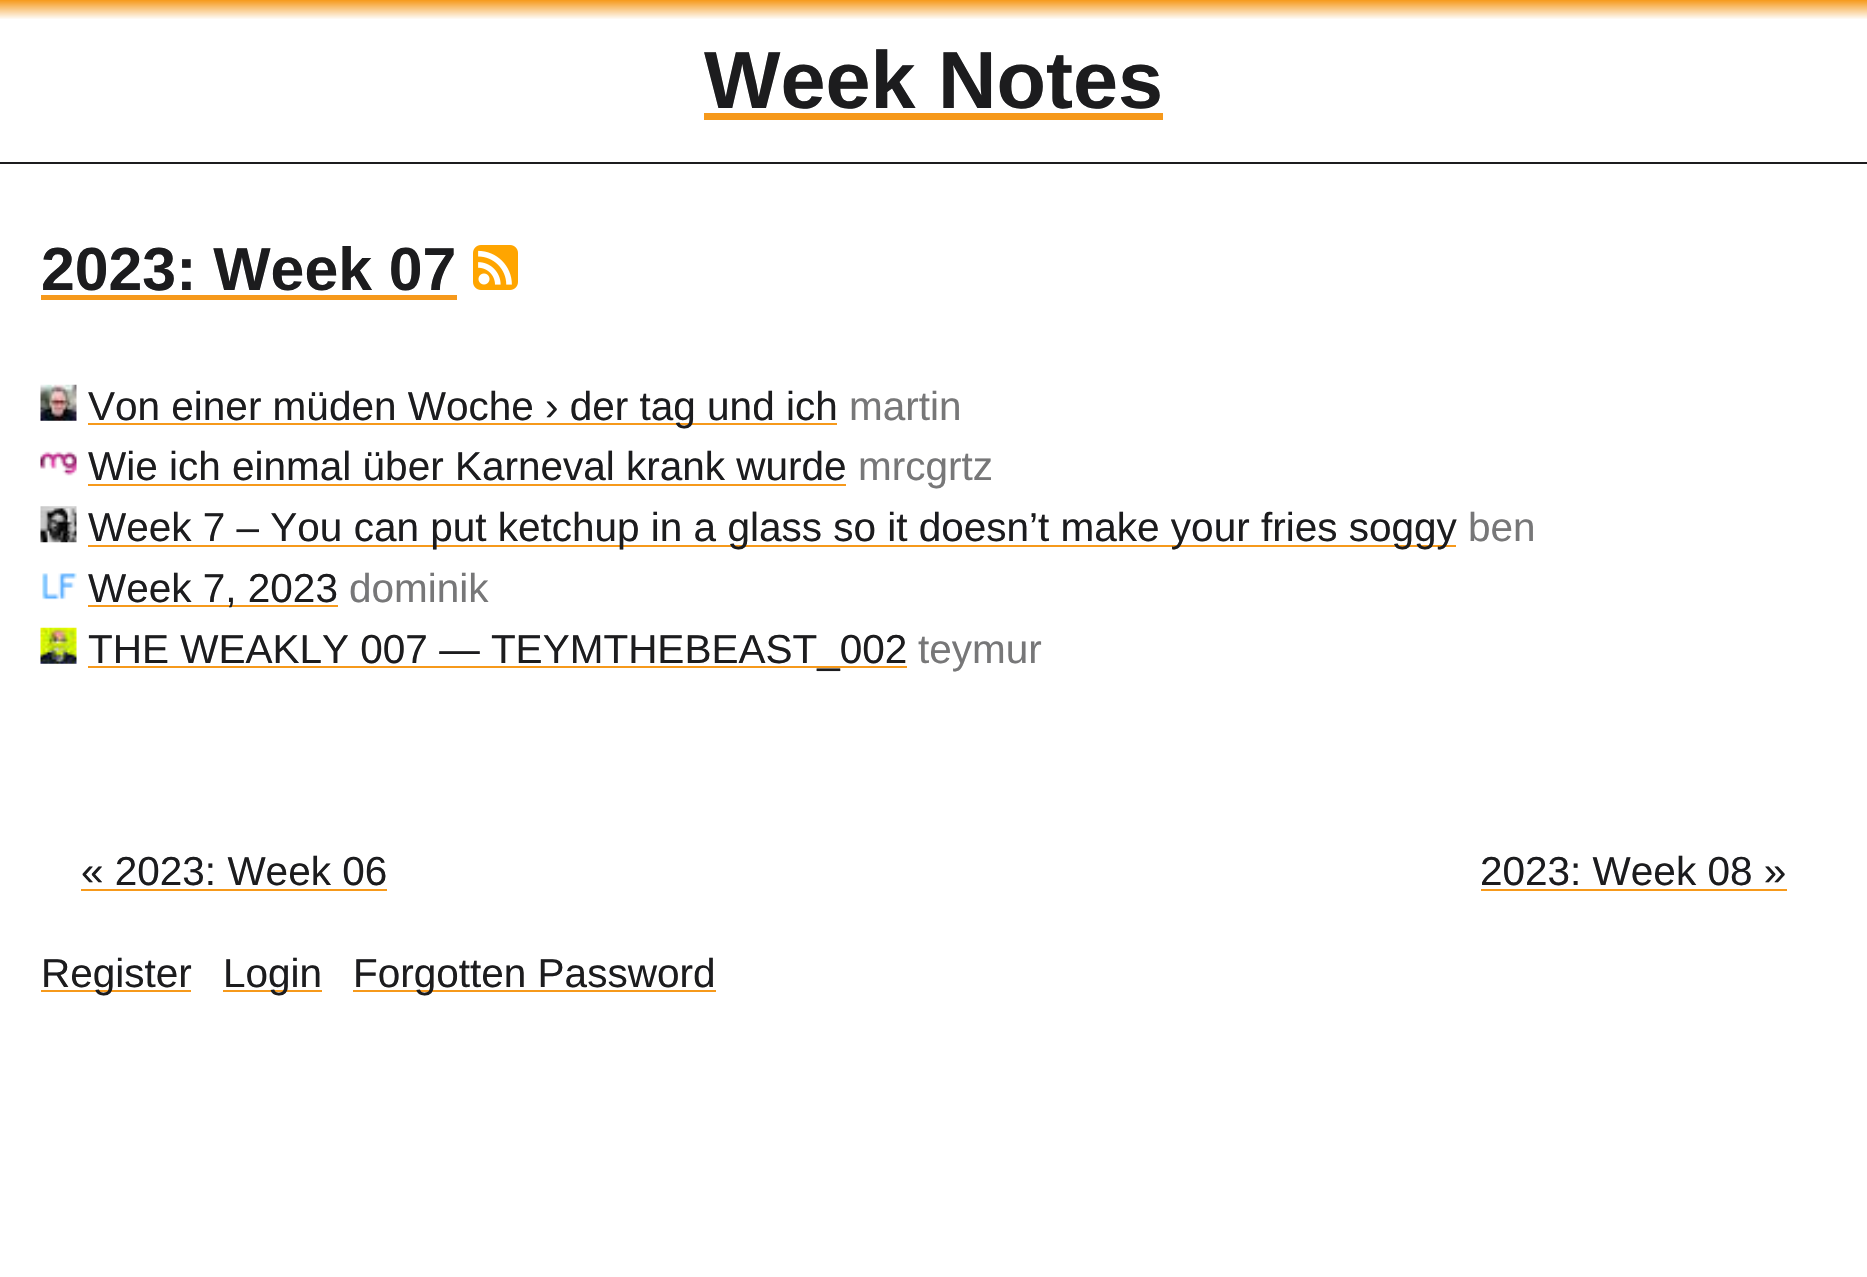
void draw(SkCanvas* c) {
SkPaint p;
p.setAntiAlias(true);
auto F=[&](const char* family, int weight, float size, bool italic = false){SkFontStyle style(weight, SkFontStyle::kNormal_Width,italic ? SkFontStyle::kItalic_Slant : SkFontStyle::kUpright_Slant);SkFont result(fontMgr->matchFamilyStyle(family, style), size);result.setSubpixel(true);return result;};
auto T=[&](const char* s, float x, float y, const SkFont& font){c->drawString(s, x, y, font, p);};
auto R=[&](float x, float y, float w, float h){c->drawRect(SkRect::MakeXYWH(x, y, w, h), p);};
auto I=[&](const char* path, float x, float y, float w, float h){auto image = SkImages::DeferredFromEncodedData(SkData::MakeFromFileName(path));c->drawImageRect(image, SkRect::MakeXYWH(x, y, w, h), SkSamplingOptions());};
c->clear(0xffffffff);
{
const SkColor colors[] = {0xfff6991b,0xfffefefe};
const float stops[] = {0,.12};
const SkPoint ends[] = {{934,0}, {934,162}};
p.setShader(SkGradientShader::MakeLinear(ends, colors, stops, 2, SkTileMode::kClamp));
p.setAlpha(255);
}
R(0,0,1867,19);
p.setShader(nullptr);
p.setColor(0xff1c1c1e);
R(0,162,1867,2);
auto f1 = F("Liberation Sans",700,81);
T("Week Notes",704,108,f1);
p.setColor(0xfff6991b);
R(704,113,459,7);
auto f2 = F("Liberation Sans",700,60.75);
p.setColor(0xff1c1c1e);
T("2023: Week 07",41,290,f2);
p.setColor(0xfff6991b);
R(41,295,416,5);
I("1.png",473,245,45,45);
I("2.png",40,384,37,37);
R(88,423,749,2);
auto f3 = F("Liberation Sans",400,40.5);
p.setColor(0xff1c1c1e);
T("Von einer müden Woche › der tag und ich",88,420,f3);
p.setColor(0xff777778);
T("martin",849,420,f3);
I("3.png",40,451,37,25);
p.setColor(0xff1c1c1e);
T("Wie ich einmal über Karneval krank wurde",88,480,f3);
p.setColor(0xfff6991b);
R(88,484,758,2);
p.setColor(0xff777778);
T("mrcgrtz",858,480,f3);
I("4.png",40,506,37,37);
p.setColor(0xfff6991b);
R(88,545,1368,2);
p.setColor(0xff1c1c1e);
T("Week 7 – You can put ketchup in a glass so it doesn’t make your fries soggy",88,541,f3);
p.setColor(0xff777778);
T("ben",1468,541,f3);
I("5.png",42,573,35,27);
p.setColor(0xfff6991b);
R(88,605,250,2);
p.setColor(0xff1c1c1e);
T("Week 7, 2023",88,602,f3);
p.setColor(0xff777778);
T("dominik",349,602,f3);
I("6.png",40,627,37,37);
p.setColor(0xfff6991b);
R(88,666,819,2);
p.setColor(0xff1c1c1e);
T("THE WEAKLY 007 — TEYMTHEBEAST_002",88,663,f3);
p.setColor(0xff777778);
T("teymur",918,663,f3);
p.setColor(0xff1c1c1e);
T("« 2023: Week 06",81,885,f3);
p.setColor(0xfff6991b);
R(81,889,306,2);
p.setColor(0xff1c1c1e);
T("2023: Week 08 »",1480,885,f3);
p.setColor(0xfff6991b);
R(1481,889,306,2);
R(41,990,150,2);
p.setColor(0xff1c1c1e);
T("Register",41,987,f3);
p.setColor(0xfff6991b);
R(223,990,99,2);
p.setColor(0xff1c1c1e);
T("Login",223,987,f3);
p.setColor(0xfff6991b);
R(353,990,363,2);
p.setColor(0xff1c1c1e);
T("Forgotten Password",353,987,f3);
}
